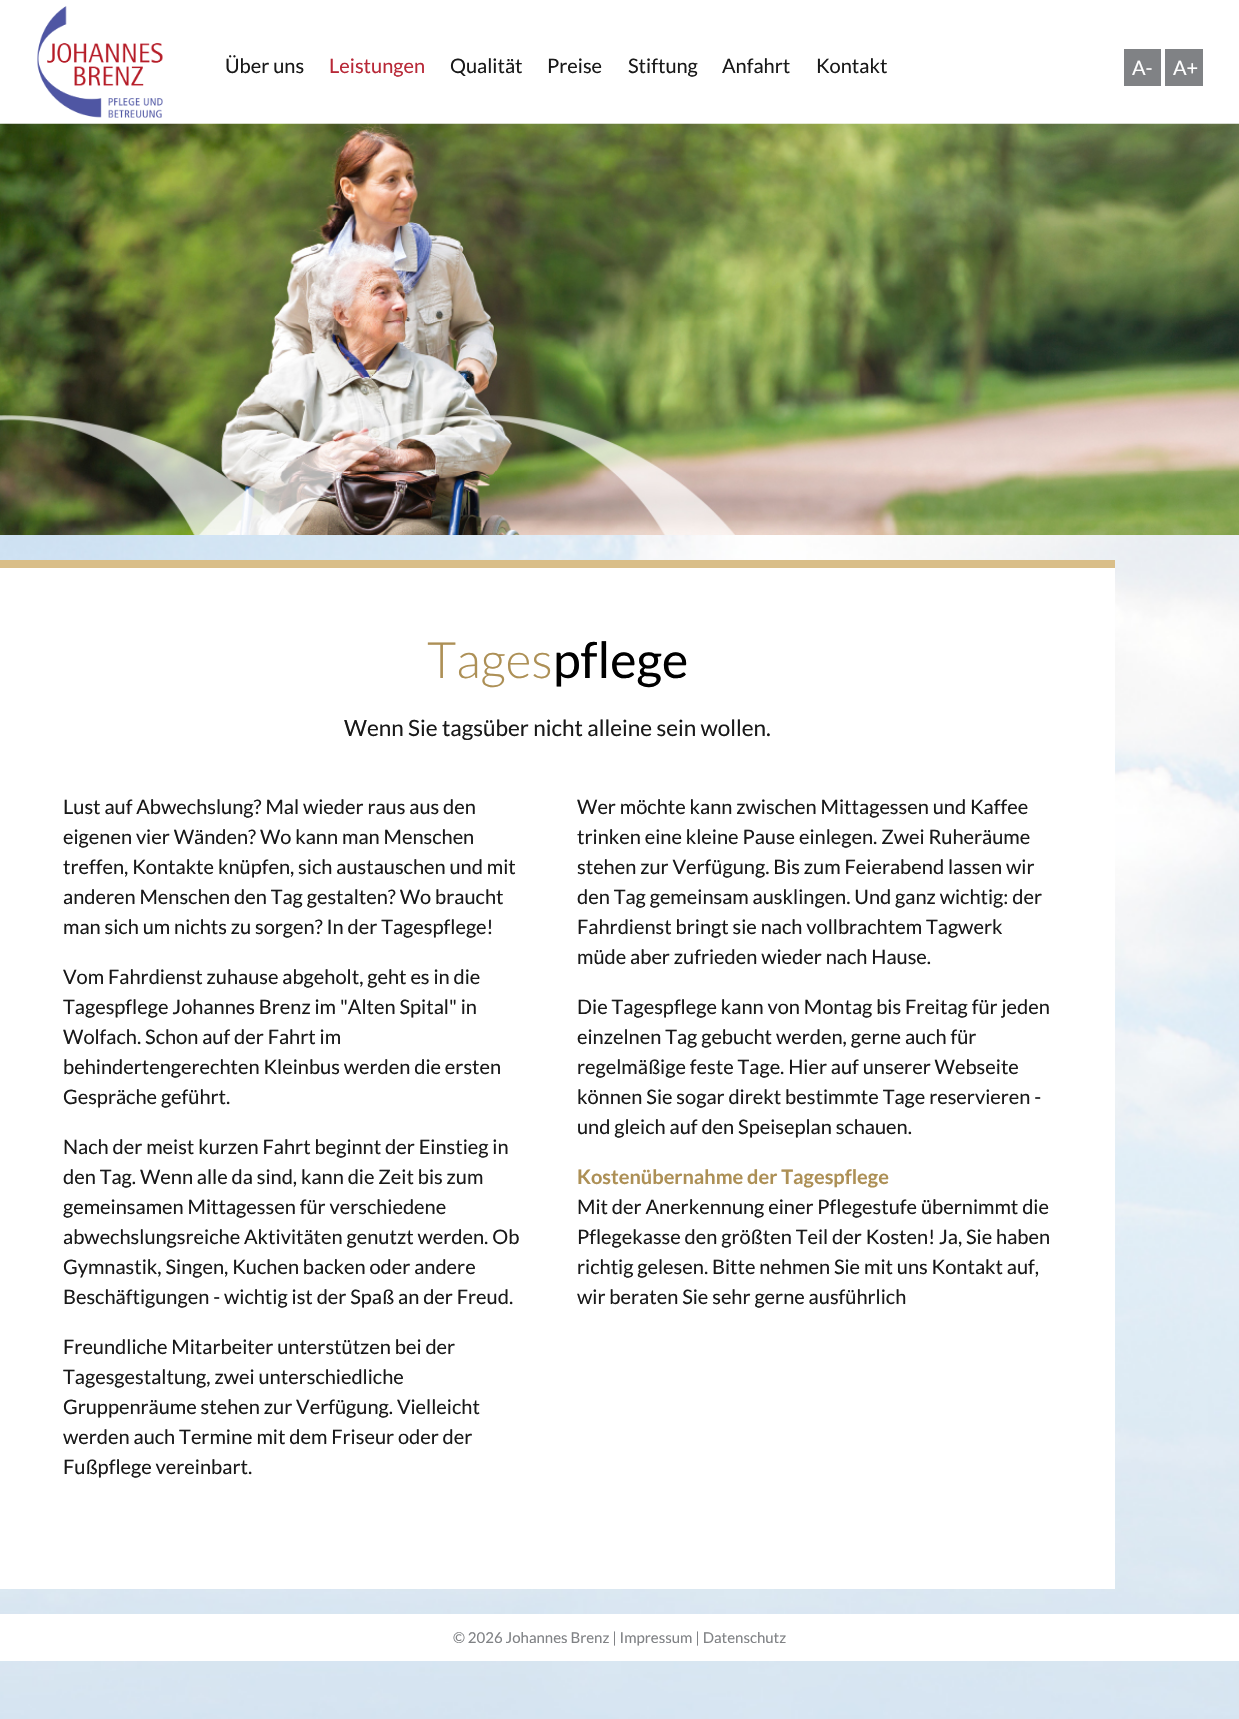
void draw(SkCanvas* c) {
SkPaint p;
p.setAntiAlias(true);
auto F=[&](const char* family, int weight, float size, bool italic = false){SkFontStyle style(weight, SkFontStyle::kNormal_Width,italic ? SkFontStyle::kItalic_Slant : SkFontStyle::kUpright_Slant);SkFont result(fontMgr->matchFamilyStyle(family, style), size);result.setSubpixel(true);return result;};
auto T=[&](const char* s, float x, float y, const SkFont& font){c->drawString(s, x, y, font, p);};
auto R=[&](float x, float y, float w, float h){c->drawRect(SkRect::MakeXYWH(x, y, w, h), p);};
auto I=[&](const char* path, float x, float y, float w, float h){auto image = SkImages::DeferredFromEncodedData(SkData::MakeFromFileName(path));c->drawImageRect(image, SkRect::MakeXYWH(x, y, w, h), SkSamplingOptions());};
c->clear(0xffffffff);
I("1.png",0,535,1239,1184);
I("2.png",37,6,126,112);
auto f1 = F("Lato",400,20);
p.setColor(0xff191919);
T("Über uns",225,73,f1);
p.setColor(0xffb82837);
T("Leistungen",329,73,f1);
p.setColor(0xff191919);
T("Qualität",450,73,f1);
T("Preise",547,73,f1);
T("Stiftung",628,73,f1);
T("Anfahrt",722,73,f1);
T("Kontakt",816,73,f1);
p.setColor(0xff808285);
R(1124,49,37,37);
p.setColor(0xffffffff);
T("A-",1132,75,f1);
p.setColor(0xff808285);
R(1165,49,38,37);
p.setColor(0xffffffff);
T("A+",1173,75,f1);
I("3.png",0,123,1239,412);
R(0,568,1115,1021);
p.setColor(0xffd9be89);
R(0,560,1115,8);
auto f2 = F("Lato",300,50);
p.setColor(0xffad9056);
T("Tages",427,678,f2);
auto f3 = F("Lato",400,50);
p.setColor(0xff000000);
T("pflege",553,678,f3);
auto f4 = F("Lato",400,22.5);
p.setColor(0xff191919);
T("Wenn Sie tagsüber nicht alleine sein wollen.",344,736,f4);
T("Lust auf Abwechslung? Mal wieder raus aus den",63,814,f1);
T("eigenen vier Wänden? Wo kann man Menschen",63,844,f1);
T("treffen, Kontakte knüpfen, sich austauschen und mit",63,874,f1);
T("anderen Menschen den Tag gestalten? Wo braucht",63,904,f1);
T("man sich um nichts zu sorgen? In der Tagespflege!",63,934,f1);
T("Vom Fahrdienst zuhause abgeholt, geht es in die",63,984,f1);
T("Tagespflege Johannes Brenz im \"Alten Spital\" in",63,1014,f1);
T("Wolfach. Schon auf der Fahrt im",63,1044,f1);
T("behindertengerechten Kleinbus werden die ersten",63,1074,f1);
T("Gespräche geführt.",63,1104,f1);
T("Nach der meist kurzen Fahrt beginnt der Einstieg in",63,1154,f1);
T("den Tag. Wenn alle da sind, kann die Zeit bis zum",63,1184,f1);
T("gemeinsamen Mittagessen für verschiedene",63,1214,f1);
T("abwechslungsreiche Aktivitäten genutzt werden. Ob",63,1244,f1);
T("Gymnastik, Singen, Kuchen backen oder andere",63,1274,f1);
T("Beschäftigungen - wichtig ist der Spaß an der Freud.",63,1304,f1);
T("Freundliche Mitarbeiter unterstützen bei der",63,1354,f1);
T("Tagesgestaltung, zwei unterschiedliche",63,1384,f1);
T("Gruppenräume stehen zur Verfügung. Vielleicht",63,1414,f1);
T("werden auch Termine mit dem Friseur oder der",63,1444,f1);
T("Fußpflege vereinbart.",63,1474,f1);
T("Wer möchte kann zwischen Mittagessen und Kaffee",577,814,f1);
T("trinken eine kleine Pause einlegen. Zwei Ruheräume",577,844,f1);
T("stehen zur Verfügung. Bis zum Feierabend lassen wir",577,874,f1);
T("den Tag gemeinsam ausklingen. Und ganz wichtig: der",577,904,f1);
T("Fahrdienst bringt sie nach vollbrachtem Tagwerk",577,934,f1);
T("müde aber zufrieden wieder nach Hause.",577,964,f1);
T("Die Tagespflege kann von Montag bis Freitag für jeden",577,1014,f1);
T("einzelnen Tag gebucht werden, gerne auch für",577,1044,f1);
T("regelmäßige feste Tage. Hier auf unserer Webseite",577,1074,f1);
T("können Sie sogar direkt bestimmte Tage reservieren -",577,1104,f1);
T("und gleich auf den Speiseplan schauen.",577,1134,f1);
auto f5 = F("Lato",700,20);
p.setColor(0xffad9056);
T("Kostenübernahme der Tagespflege",577,1184,f5);
p.setColor(0xff191919);
T("Mit der Anerkennung einer Pflegestufe übernimmt die",577,1214,f1);
T("Pflegekasse den größten Teil der Kosten! Ja, Sie haben",577,1244,f1);
T("richtig gelesen. Bitte nehmen Sie mit uns Kontakt auf,",577,1274,f1);
T("wir beraten Sie sehr gerne ausführlich",577,1304,f1);
p.setColor(0xffffffff);
R(0,1614,1239,47);
auto f6 = F("Lato",400,15);
p.setColor(0xff808285);
T("© 2026 Johannes Brenz | Impressum | Datenschutz",453,1643,f6);
}
